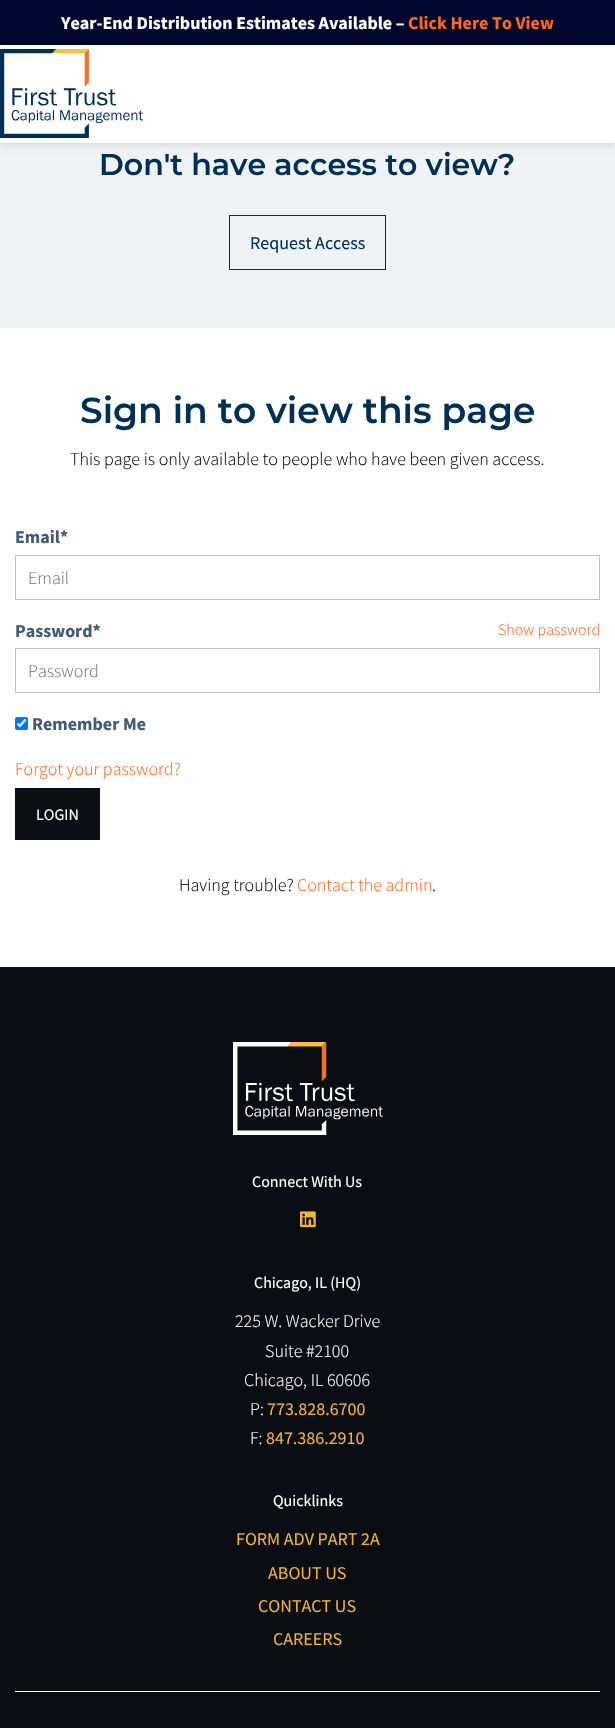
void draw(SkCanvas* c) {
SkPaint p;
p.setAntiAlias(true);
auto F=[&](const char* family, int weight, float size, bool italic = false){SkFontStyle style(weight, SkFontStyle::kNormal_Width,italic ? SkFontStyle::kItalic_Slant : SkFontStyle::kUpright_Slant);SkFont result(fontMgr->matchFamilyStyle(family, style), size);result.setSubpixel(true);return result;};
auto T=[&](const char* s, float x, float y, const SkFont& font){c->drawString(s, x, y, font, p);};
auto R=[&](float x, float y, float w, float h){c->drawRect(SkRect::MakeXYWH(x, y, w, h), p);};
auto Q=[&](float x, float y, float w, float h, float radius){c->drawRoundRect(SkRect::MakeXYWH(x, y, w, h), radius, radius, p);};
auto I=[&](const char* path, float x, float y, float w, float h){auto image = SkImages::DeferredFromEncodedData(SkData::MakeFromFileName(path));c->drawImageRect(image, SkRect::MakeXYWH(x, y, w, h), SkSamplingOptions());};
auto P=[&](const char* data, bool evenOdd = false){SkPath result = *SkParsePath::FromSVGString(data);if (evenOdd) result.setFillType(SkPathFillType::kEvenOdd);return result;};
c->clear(0xff0b0d14);
p.setColor(0xfff0f3f5);
R(0,143,615,185);
p.setColor(0x1a000000);
p.setMaskFilter(SkMaskFilter::MakeBlur(kNormal_SkBlurStyle, 3));
c->drawRect(SkRect::MakeXYWH(0,3,615,143),p);
p.setMaskFilter(nullptr);
p.setColor(0xffffffff);
R(0,45,615,98);
p.setColor(0xff00062e);
R(0,0,615,45);
auto f1 = F("Source Sans Pro",700,18);
p.setColor(0xffffffff);
T("Year-End Distribution Estimates Available –",61,29,f1);
p.setColor(0xffff6720);
T("Click Here To View",408,29,f1);
I("1.png",0,49,143,89);
p.setColor(0xffffffff);
R(0,328,615,639);
auto f2 = F("Montserrat",600,30);
p.setColor(0xff003057);
T("Don't have access to view?",99,175,f2);
p.setStroke(true);
p.setStrokeWidth(1);
c->drawRect(SkRect::MakeXYWH(229.5,215.5,156,54),p);
auto f3 = F("Source Sans Pro",400,18);
p.setStroke(false);
T("Request Access",250,249,f3);
auto f4 = F("Montserrat",600,36);
T("Sign in to view this page",80,423,f4);
auto f5 = F("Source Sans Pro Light",300,18);
p.setColor(0xff0b0d14);
T("This page is only available to people who have been given access.",70,465,f5);
p.setColor(0xff425b76);
T("Email*",15,543,f1);
p.setStroke(true);
p.setColor(0xffc1c1c1);
c->drawRect(SkRect::MakeXYWH(15.5,555.5,584,44),p);
p.setStroke(false);
p.setColor(0xff757575);
T("Email",28,584,f5);
p.setColor(0xff425b76);
T("Password*",15,637,f1);
auto f6 = F("Source Sans Pro Light",300,16);
p.setColor(0xffff6720);
T("Show password",498,635,f6);
p.setStroke(true);
p.setColor(0xffc1c1c1);
c->drawRect(SkRect::MakeXYWH(15.5,648.5,584,44),p);
p.setStroke(false);
p.setColor(0xff757575);
T("Password",28,677,f5);
p.setColor(0xff0075ff);
Q(15,717,13,13,2);
p.setStroke(true);
p.setStrokeWidth(2.1);
p.setColor(0xffffffff);
c->drawPath(P("M17.5 723.5l2.5 2.5l5.5-6.5"),p);
p.setStroke(false);
p.setColor(0xff425b76);
T("Remember Me",32,730,f1);
p.setColor(0xffff6720);
T("Forgot your password?",15,775,f5);
p.setColor(0xff0b0d14);
R(15,788,85,52);
auto f7 = F("Source Sans Pro",400,16);
p.setColor(0xffffffff);
T("LOGIN",36,820,f7);
p.setColor(0xff0b0d14);
T("Having trouble?",179,891,f5);
p.setColor(0xffff6720);
T("Contact the admin",297,891,f5);
p.setColor(0xff0b0d14);
T(".",432,891,f5);
I("2.png",233,1042,150,93);
p.setColor(0xffffffff);
T("Connect With Us",252,1187,f7);
I("3.png",300,1211,16,17);
T("Chicago, IL (HQ)",254,1288,f7);
T("225 W. Wacker Drive",235,1327,f5);
T("Suite #2100",265,1357,f5);
T("Chicago, IL 60606",244,1386,f5);
T("P:",250,1415,f5);
p.setColor(0xfff1b434);
T("773.828.6700",267,1415,f3);
p.setColor(0xffffffff);
T("F:",250,1444,f5);
p.setColor(0xfff1b434);
T("847.386.2910",266,1444,f3);
p.setColor(0xffffffff);
T("Quicklinks",273,1506,f7);
p.setColor(0xfff1b434);
T("FORM ADV PART 2A",236,1545,f3);
T("ABOUT US",268,1579,f3);
T("CONTACT US",258,1612,f3);
T("CAREERS",273,1645,f3);
p.setColor(0xffffffff);
R(15,1691,585,1);
}
